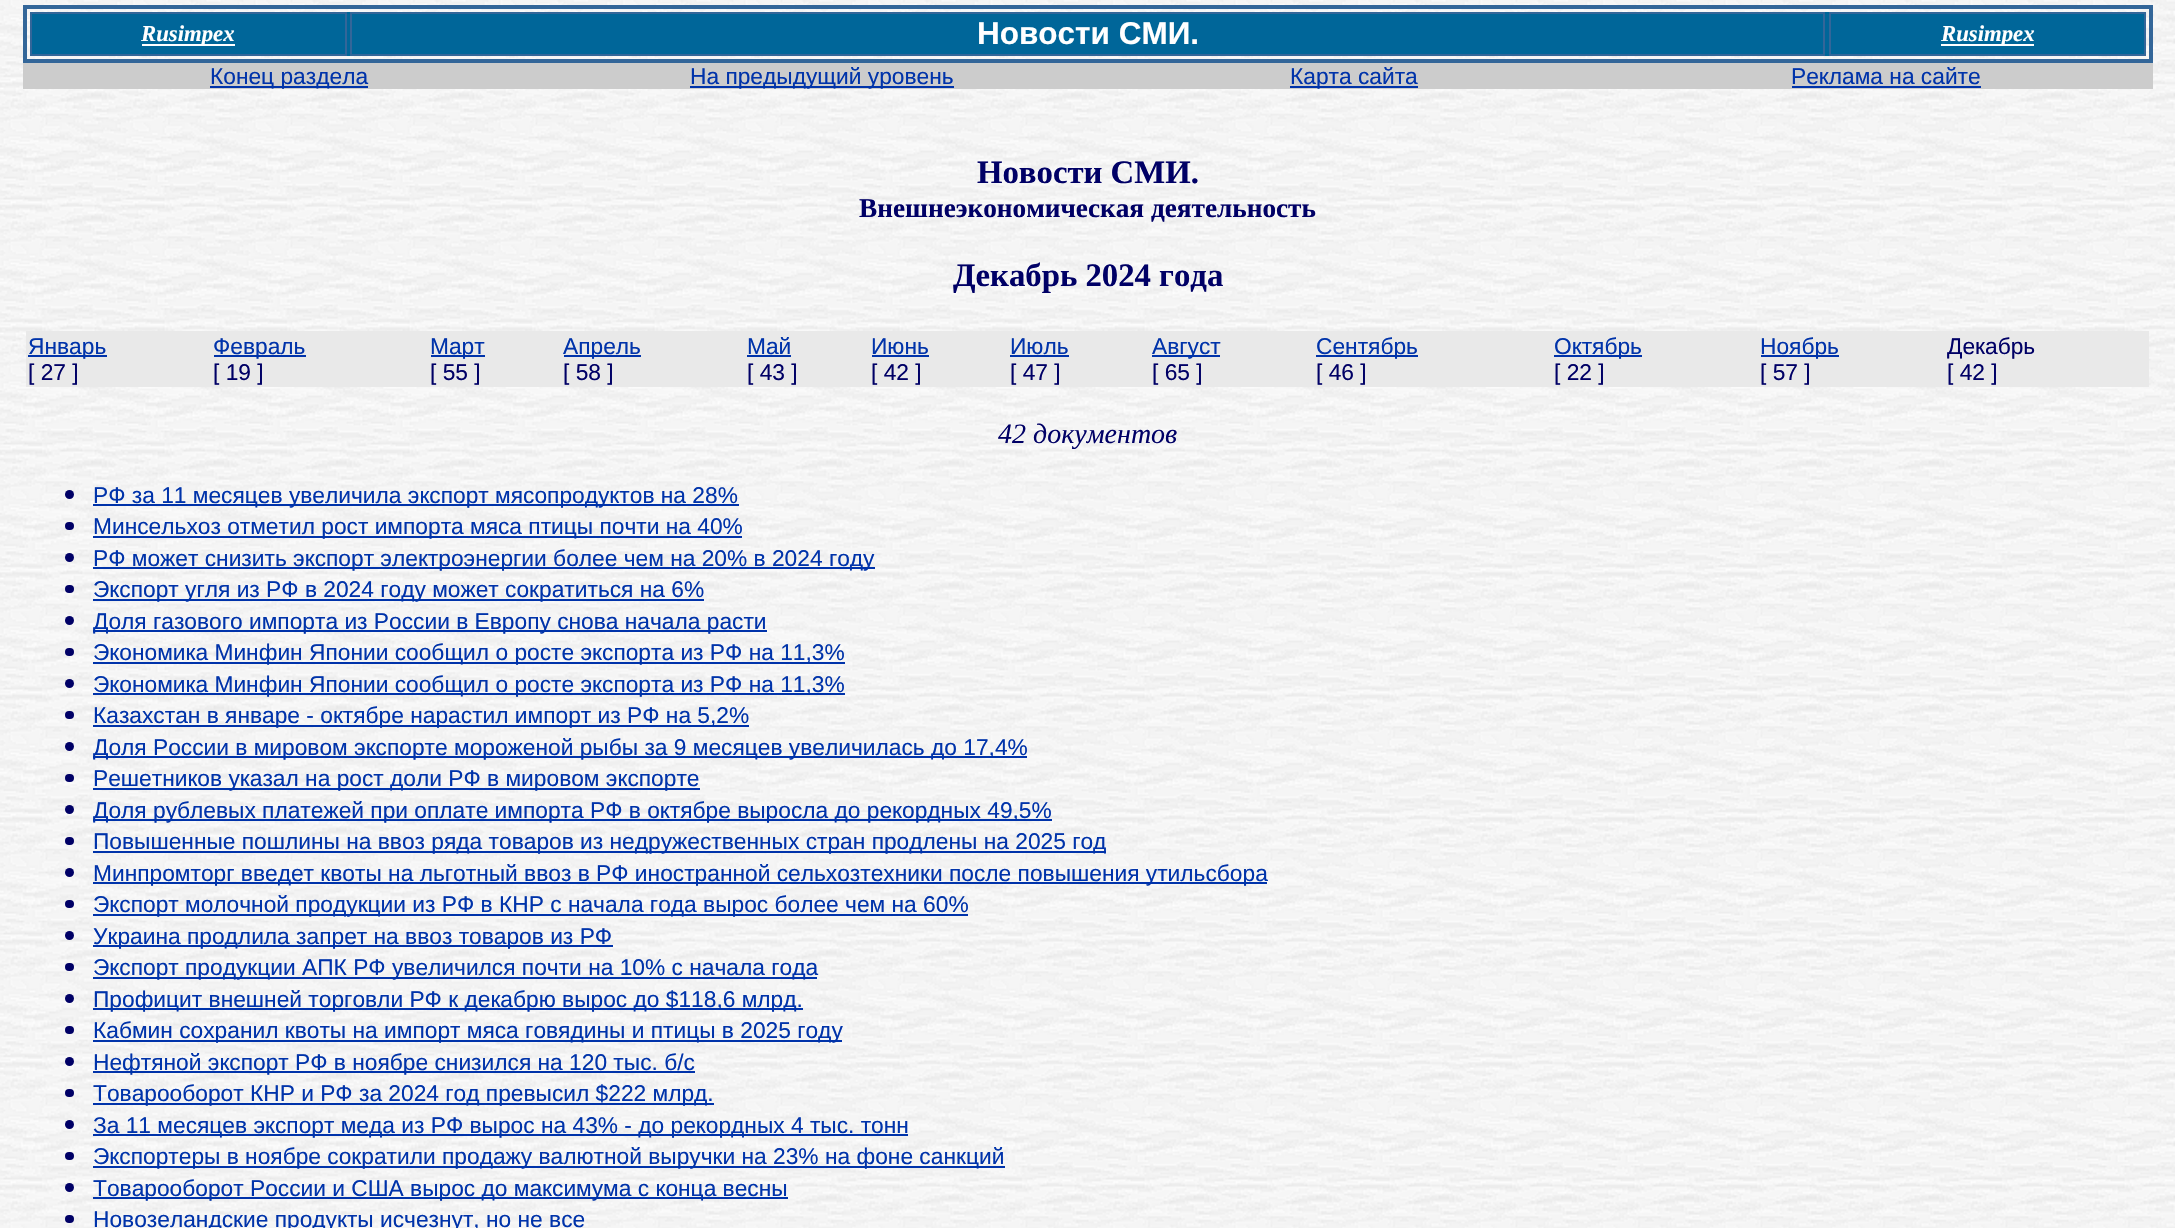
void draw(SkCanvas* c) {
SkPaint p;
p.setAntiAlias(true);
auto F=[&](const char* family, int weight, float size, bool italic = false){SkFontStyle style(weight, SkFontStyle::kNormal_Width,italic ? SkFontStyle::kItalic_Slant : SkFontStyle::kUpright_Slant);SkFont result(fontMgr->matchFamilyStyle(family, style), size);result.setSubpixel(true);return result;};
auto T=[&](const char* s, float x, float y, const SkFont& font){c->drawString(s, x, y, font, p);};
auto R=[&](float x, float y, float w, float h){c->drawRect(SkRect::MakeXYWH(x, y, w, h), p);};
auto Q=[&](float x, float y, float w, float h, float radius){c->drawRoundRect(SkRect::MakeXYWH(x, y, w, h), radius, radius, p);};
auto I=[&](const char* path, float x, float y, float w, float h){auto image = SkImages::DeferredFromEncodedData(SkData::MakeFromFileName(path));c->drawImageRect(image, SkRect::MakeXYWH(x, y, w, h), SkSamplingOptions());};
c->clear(0xffffffff);
I("1.png",0,0,2175,1228);
p.setStroke(true);
p.setStrokeWidth(4);
p.setColor(0xff336699);
c->drawRect(SkRect::MakeXYWH(25,7,2126,54),p);
p.setStroke(false);
p.setColor(0xff006699);
R(32,12,2112,44);
p.setStroke(true);
p.setStrokeWidth(2);
p.setColor(0xff336699);
c->drawRect(SkRect::MakeXYWH(31,13,315,42),p);
p.setStroke(false);
p.setColor(0xffffffff);
R(142,44,93,2);
auto f1 = F("Liberation Serif",700,22.75,true);
T("Rusimpex",141,41,f1);
p.setStroke(true);
p.setColor(0xff336699);
c->drawRect(SkRect::MakeXYWH(351,13,1473,42),p);
auto f2 = F("Liberation Sans",700,31.5);
p.setStroke(false);
p.setColor(0xffffffff);
T("Новости СМИ.",977,44,f2);
p.setStroke(true);
p.setColor(0xff336699);
c->drawRect(SkRect::MakeXYWH(1830,13,315,42),p);
p.setStroke(false);
p.setColor(0xffffffff);
R(1941,44,93,2);
T("Rusimpex",1941,41,f1);
p.setColor(0xffcccccc);
R(23,63,2130,26);
p.setColor(0xff0033aa);
R(210,86,158,2);
auto f3 = F("Liberation Sans",400,22.75);
T("Конец раздела",210,84,f3);
R(690,86,264,2);
T("На предыдущий уровень",690,84,f3);
R(1290,86,128,2);
T("Карта сайта",1290,84,f3);
T("Реклама на сайте",1791,84,f3);
R(1792,86,189,2);
auto f4 = F("Liberation Serif",700,32.75);
p.setColor(0xff000066);
T("Новости СМИ.",977,183,f4);
auto f5 = F("Liberation Serif",700,27.25);
T("Внешнеэкономическая деятельность",859,217,f5);
T("Декабрь 2024 года",953,286,f4);
p.setColor(0xffe9e9e9);
R(26,331,2123,56);
p.setColor(0xff0033aa);
R(28,355,79,2);
T("Январь",28,354,f3);
p.setColor(0xff000066);
T("[ 27 ]",28,380,f3);
p.setColor(0xff0033aa);
R(214,355,92,2);
T("Февраль",213,354,f3);
p.setColor(0xff000066);
T("[ 19 ]",213,380,f3);
p.setColor(0xff0033aa);
R(431,355,54,2);
T("Март",430,354,f3);
p.setColor(0xff000066);
T("[ 55 ]",430,380,f3);
p.setColor(0xff0033aa);
R(564,355,77,2);
T("Апрель",563,354,f3);
p.setColor(0xff000066);
T("[ 58 ]",563,380,f3);
p.setColor(0xff0033aa);
T("Май",747,354,f3);
R(747,355,44,2);
p.setColor(0xff000066);
T("[ 43 ]",747,380,f3);
p.setColor(0xff0033aa);
T("Июнь",871,354,f3);
R(872,355,57,2);
p.setColor(0xff000066);
T("[ 42 ]",871,380,f3);
p.setColor(0xff0033aa);
T("Июль",1010,354,f3);
R(1010,355,59,2);
p.setColor(0xff000066);
T("[ 47 ]",1010,380,f3);
p.setColor(0xff0033aa);
R(1152,355,68,2);
T("Август",1152,354,f3);
p.setColor(0xff000066);
T("[ 65 ]",1152,380,f3);
p.setColor(0xff0033aa);
R(1316,355,102,2);
T("Сентябрь",1316,354,f3);
p.setColor(0xff000066);
T("[ 46 ]",1316,380,f3);
p.setColor(0xff0033aa);
R(1554,355,88,2);
T("Октябрь",1554,354,f3);
p.setColor(0xff000066);
T("[ 22 ]",1554,380,f3);
p.setColor(0xff0033aa);
R(1761,355,78,2);
T("Ноябрь",1760,354,f3);
p.setColor(0xff000066);
T("[ 57 ]",1760,380,f3);
T("Декабрь",1947,354,f3);
T("[ 42 ]",1947,380,f3);
auto f6 = F("Liberation Serif",400,28,true);
T("42 документов",998,443,f6);
c->drawCircle(69.5,494.5,4.5,p);
p.setColor(0xff0033aa);
R(93,504,646,2);
T("РФ за 11 месяцев увеличила экспорт мясопродуктов на 28%",93,503,f3);
p.setColor(0xff000066);
Q(65,522,9,8,4);
p.setColor(0xff0033aa);
R(93,536,649,2);
T("Минсельхоз отметил рост импорта мяса птицы почти на 40%",93,534,f3);
p.setColor(0xff000066);
c->drawCircle(69.5,557.5,4.5,p);
p.setColor(0xff0033aa);
R(93,567,782,2);
T("РФ может снизить экспорт электроэнергии более чем на 20% в 2024 году",93,566,f3);
p.setColor(0xff000066);
Q(65,585,9,8,4);
p.setColor(0xff0033aa);
R(93,599,611,2);
T("Экспорт угля из РФ в 2024 году может сократиться на 6%",93,597,f3);
p.setColor(0xff000066);
c->drawCircle(69.5,620.5,4.5,p);
p.setColor(0xff0033aa);
R(93,630,674,2);
T("Доля газового импорта из России в Европу снова начала расти",93,629,f3);
p.setColor(0xff000066);
Q(65,648,9,8,4);
p.setColor(0xff0033aa);
R(93,662,752,2);
T("Экономика Минфин Японии сообщил о росте экспорта из РФ на 11,3%",93,660,f3);
p.setColor(0xff000066);
c->drawCircle(69.5,683.5,4.5,p);
p.setColor(0xff0033aa);
R(93,693,752,2);
T("Экономика Минфин Японии сообщил о росте экспорта из РФ на 11,3%",93,692,f3);
p.setColor(0xff000066);
Q(65,711,9,8,4);
p.setColor(0xff0033aa);
R(93,725,656,2);
T("Казахстан в январе - октябре нарастил импорт из РФ на 5,2%",93,723,f3);
p.setColor(0xff000066);
c->drawCircle(69.5,746.5,4.5,p);
p.setColor(0xff0033aa);
R(93,756,934,2);
T("Доля России в мировом экспорте мороженой рыбы за 9 месяцев увеличилась до 17,4%",93,755,f3);
p.setColor(0xff000066);
Q(65,774,9,8,4);
p.setColor(0xff0033aa);
R(93,788,607,2);
T("Решетников указал на рост доли РФ в мировом экспорте",93,786,f3);
p.setColor(0xff000066);
c->drawCircle(69.5,809.5,4.5,p);
p.setColor(0xff0033aa);
R(93,819,959,2);
T("Доля рублевых платежей при оплате импорта РФ в октябре выросла до рекордных 49,5%",93,818,f3);
p.setColor(0xff000066);
Q(65,837,9,8,4);
p.setColor(0xff0033aa);
R(93,851,1013,2);
T("Повышенные пошлины на ввоз ряда товаров из недружественных стран продлены на 2025 год",93,849,f3);
p.setColor(0xff000066);
c->drawCircle(69.5,872.5,4.5,p);
p.setColor(0xff0033aa);
R(93,882,1174,2);
T("Минпромторг введет квоты на льготный ввоз в РФ иностранной сельхозтехники после повышения утильсбора",93,881,f3);
p.setColor(0xff000066);
Q(65,900,9,8,4);
p.setColor(0xff0033aa);
R(93,914,875,2);
T("Экспорт молочной продукции из РФ в КНР с начала года вырос более чем на 60%",93,912,f3);
p.setColor(0xff000066);
c->drawCircle(69.5,935.5,4.5,p);
p.setColor(0xff0033aa);
R(93,945,520,2);
T("Украина продлила запрет на ввоз товаров из РФ",93,944,f3);
p.setColor(0xff000066);
Q(65,963,9,8,4);
p.setColor(0xff0033aa);
R(93,977,724,2);
T("Экспорт продукции АПК РФ увеличился почти на 10% с начала года",93,975,f3);
p.setColor(0xff000066);
c->drawCircle(69.5,998.5,4.5,p);
p.setColor(0xff0033aa);
R(93,1008,710,2);
T("Профицит внешней торговли РФ к декабрю вырос до $118,6 млрд.",93,1007,f3);
p.setColor(0xff000066);
Q(65,1026,9,8,4);
p.setColor(0xff0033aa);
R(93,1040,749,2);
T("Кабмин сохранил квоты на импорт мяса говядины и птицы в 2025 году",93,1038,f3);
p.setColor(0xff000066);
c->drawCircle(69.5,1061.5,4.5,p);
p.setColor(0xff0033aa);
R(93,1071,602,2);
T("Нефтяной экспорт РФ в ноябре снизился на 120 тыс. б/с",93,1070,f3);
p.setColor(0xff000066);
Q(65,1089,9,8,4);
p.setColor(0xff0033aa);
R(93,1103,621,2);
T("Товарооборот КНР и РФ за 2024 год превысил $222 млрд.",93,1101,f3);
p.setColor(0xff000066);
c->drawCircle(69.5,1124.5,4.5,p);
p.setColor(0xff0033aa);
R(93,1134,815,2);
T("За 11 месяцев экспорт меда из РФ вырос на 43% - до рекордных 4 тыс. тонн",93,1133,f3);
p.setColor(0xff000066);
Q(65,1152,9,8,4);
p.setColor(0xff0033aa);
R(93,1166,912,2);
T("Экспортеры в ноябре сократили продажу валютной выручки на 23% на фоне санкций",93,1164,f3);
p.setColor(0xff000066);
c->drawCircle(69.5,1187.5,4.5,p);
p.setColor(0xff0033aa);
R(93,1197,695,2);
T("Товарооборот России и США вырос до максимума с конца весны",93,1196,f3);
p.setColor(0xff000066);
Q(65,1215,9,8,4);
p.setColor(0xff0033aa);
T("Новозеландские продукты исчезнут, но не все",93,1227,f3);
}
